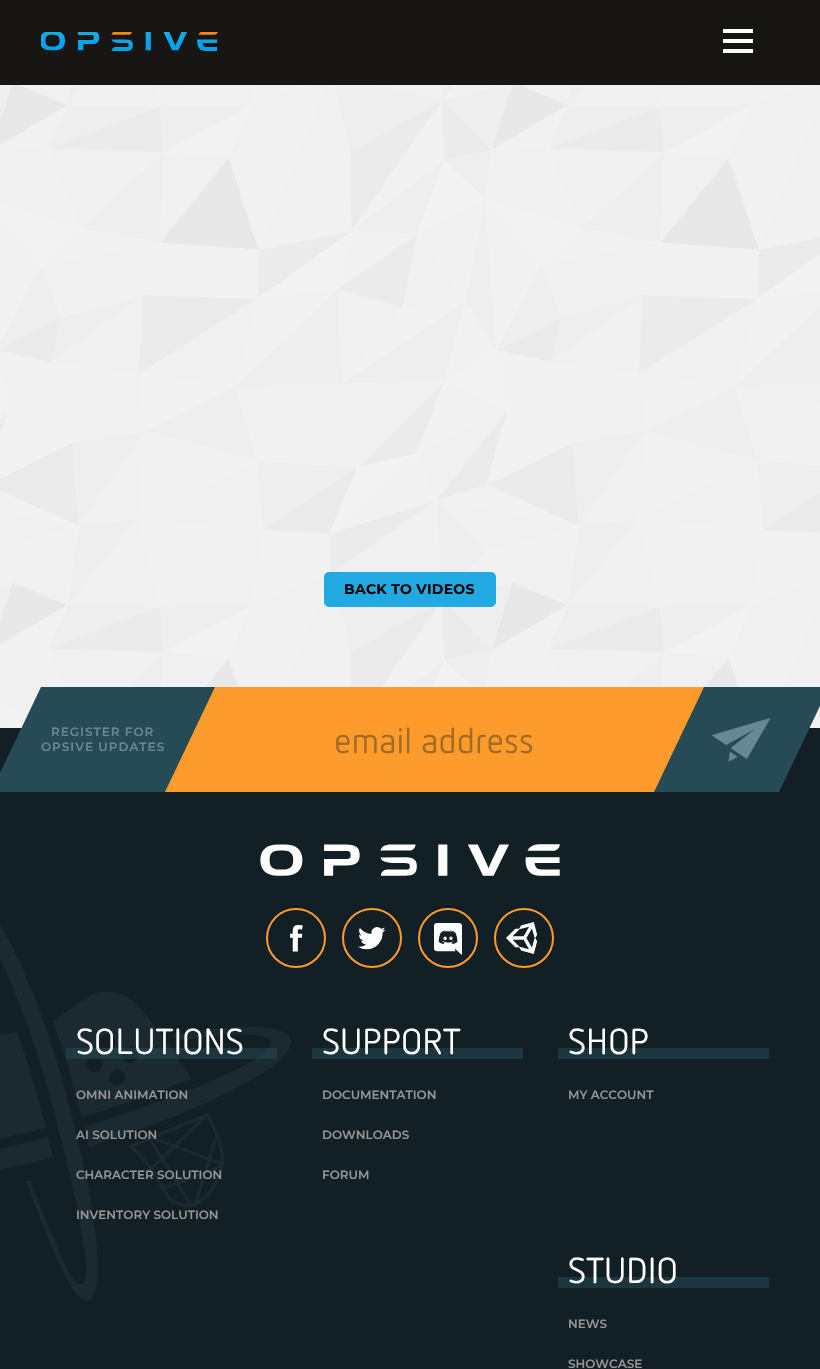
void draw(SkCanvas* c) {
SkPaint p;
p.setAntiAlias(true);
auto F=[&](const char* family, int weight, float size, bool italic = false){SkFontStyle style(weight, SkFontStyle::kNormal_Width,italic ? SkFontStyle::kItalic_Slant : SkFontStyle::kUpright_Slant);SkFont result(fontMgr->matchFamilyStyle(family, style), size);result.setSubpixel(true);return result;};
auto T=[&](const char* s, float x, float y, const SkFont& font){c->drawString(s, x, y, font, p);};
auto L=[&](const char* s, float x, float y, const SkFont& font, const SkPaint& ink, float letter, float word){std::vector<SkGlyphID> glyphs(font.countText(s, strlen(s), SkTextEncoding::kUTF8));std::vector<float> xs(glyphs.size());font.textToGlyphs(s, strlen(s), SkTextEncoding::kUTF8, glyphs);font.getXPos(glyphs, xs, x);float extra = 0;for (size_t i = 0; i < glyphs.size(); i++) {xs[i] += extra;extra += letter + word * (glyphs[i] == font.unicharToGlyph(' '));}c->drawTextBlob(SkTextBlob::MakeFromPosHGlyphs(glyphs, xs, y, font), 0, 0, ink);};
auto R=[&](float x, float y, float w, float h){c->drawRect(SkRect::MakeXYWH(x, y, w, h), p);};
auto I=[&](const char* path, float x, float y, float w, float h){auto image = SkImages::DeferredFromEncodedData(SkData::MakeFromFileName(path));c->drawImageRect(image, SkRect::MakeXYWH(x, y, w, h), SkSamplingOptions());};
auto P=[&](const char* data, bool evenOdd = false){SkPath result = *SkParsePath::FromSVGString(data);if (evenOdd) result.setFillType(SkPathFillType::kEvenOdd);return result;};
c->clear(0xffffffff);
I("1.png",0,85,820,643);
p.setColor(0xff181515);
R(0,0,820,85);
I("2.png",41,32,177,19);
p.setColor(0xffffffff);
R(723,49,30,4);
R(723,29,30,4);
R(723,39,30,4);
p.setColor(0xff22a9e2);
c->drawRoundRect(SkRect::MakeXYWH(325,573,170,33),4,4,p);
p.setStroke(true);
p.setStrokeWidth(2);
c->drawRoundRect(SkRect::MakeXYWH(325,573,170,33),4,4,p);
auto f1 = F("Montserrat",700,14);
p.setStroke(false);
p.setColor(0xff000000);
L("BACK TO VIDEOS",344,594,f1,p,.25,0);
p.setColor(0xff121f24);
R(0,728,820,641);
p.setColor(0xfffd9b2c);
R(165,687,539,105);
p.setColor(0xff274a57);
R(704,687,75,105);
c->drawPath(P("M704 792h-50l50-105z"),p);
c->drawPath(P("M779 687h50l-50 105z"),p);
R(41,687,124,105);
c->drawPath(P("M41 792h-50l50-105z"),p);
auto f2 = F("Montserrat",600,12);
p.setColor(0xff678794);
L("REGISTER FOR",51,736,f2,p,1,0);
p.setColor(0xff274a57);
c->drawPath(P("M165 687h50l-50 105z"),p);
p.setColor(0xff678794);
L("OPSIVE UPDATES",41,751,f2,p,1,0);
auto f3 = F("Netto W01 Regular",400,36);
p.setColor(0xffa36c24);
L("email address",334,753,f3,p,-.4,0);
I("3.png",712,718,59,44);
I("4.png",260,844,300,32);
I("9.png",0,925,291,376);
p.setStroke(true);
p.setColor(0xfffd9b2c);
c->drawCircle(296,938,29,p);
I("5.png",290,925,13,27);
c->drawCircle(372,938,29,p);
I("6.png",358,927,28,23);
c->drawCircle(448,938,29,p);
I("7.png",434,923,28,32);
c->drawCircle(524,938,29,p);
I("8.png",506,922,32,32);
p.setStroke(false);
p.setColor(0x80274a57);
R(66,1048,211,11);
p.setColor(0xffffffff);
T("SOLUTIONS",76,1054,f3);
p.setColor(0xff959595);
T("OMNI ANIMATION",76,1099,f2);
T("AI SOLUTION",76,1139,f2);
T("CHARACTER SOLUTION",76,1179,f2);
T("INVENTORY SOLUTION",76,1219,f2);
p.setColor(0xff1d353e);
R(312,1048,211,11);
p.setColor(0xffffffff);
T("SUPPORT",322,1054,f3);
p.setColor(0xff959595);
T("DOCUMENTATION",322,1099,f2);
T("DOWNLOADS",322,1139,f2);
T("FORUM",322,1179,f2);
p.setColor(0xff1d353e);
R(558,1048,211,11);
p.setColor(0xffffffff);
T("SHOP",568,1054,f3);
p.setColor(0xff959595);
T("MY ACCOUNT",568,1099,f2);
p.setColor(0xff1d353e);
R(558,1277,211,11);
p.setColor(0xffffffff);
T("STUDIO",568,1283,f3);
p.setColor(0xff959595);
T("NEWS",568,1328,f2);
T("SHOWCASE",568,1368,f2);
}
